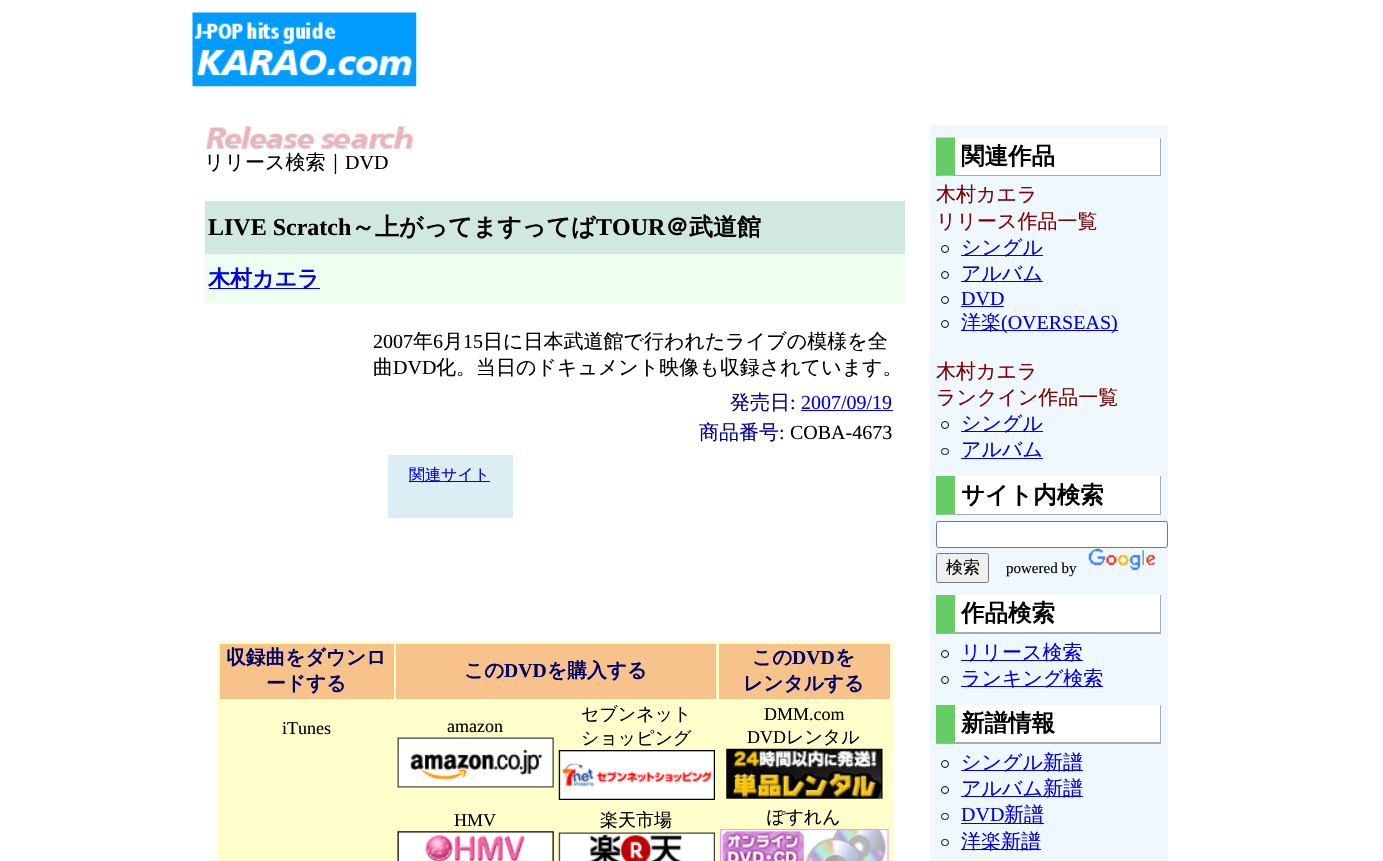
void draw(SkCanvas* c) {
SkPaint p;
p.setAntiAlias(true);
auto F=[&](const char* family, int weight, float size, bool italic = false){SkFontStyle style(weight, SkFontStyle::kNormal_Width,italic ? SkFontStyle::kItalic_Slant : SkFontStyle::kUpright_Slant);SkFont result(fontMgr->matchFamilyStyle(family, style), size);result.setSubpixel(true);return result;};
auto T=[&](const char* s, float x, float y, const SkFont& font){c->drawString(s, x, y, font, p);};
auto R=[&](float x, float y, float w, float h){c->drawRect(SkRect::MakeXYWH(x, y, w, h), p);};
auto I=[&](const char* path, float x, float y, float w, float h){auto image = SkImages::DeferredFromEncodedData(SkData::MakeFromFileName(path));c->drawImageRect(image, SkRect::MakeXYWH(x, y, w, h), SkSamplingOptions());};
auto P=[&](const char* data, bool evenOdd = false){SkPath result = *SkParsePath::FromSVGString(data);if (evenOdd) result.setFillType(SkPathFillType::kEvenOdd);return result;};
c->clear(0xffffffff);
I("1.png",192,12,225,75);
I("2.png",206,126,207,23);
auto f1 = F("WenQuanYi Zen Hei",500,20);
p.setColor(0xff000000);
T("リリース検索｜",204,169,f1);
auto f2 = F("Liberation Serif",400,20);
T("DVD",345,169,f2);
p.setColor(0xffd0e8e0);
R(205,201,700,53);
auto f3 = F("Liberation Serif",700,24);
p.setColor(0xff000000);
T("LIVE Scratch",208,235,f3);
auto f4 = F("WenQuanYi Zen Hei",700,24);
T("～上がってますってば",351,235,f4);
T("TOUR",596,235,f3);
T("＠武道館",665,235,f4);
p.setColor(0xffefffef);
R(205,254,700,50);
p.setColor(0xff0000ee);
R(209,288,111,1);
auto f5 = F("WenQuanYi Zen Hei",700,22);
T("木村カエラ",208,286,f5);
p.setColor(0xff000000);
T("2007",373,348,f2);
T("年",413,348,f1);
T("6",433,348,f2);
T("月",443,348,f1);
T("15",463,348,f2);
T("日に日本武道館で行われたライブの模様を全",483,348,f1);
T("曲",373,374,f1);
T("DVD",393,374,f2);
T("化。当日のドキュメント映像も収録されています。",436,374,f1);
p.setColor(0xff000099);
T("発売日",730,409,f1);
T(":",790,409,f2);
p.setColor(0xff0000ee);
T("2007/09/19",801,409,f2);
R(801,410,92,1);
p.setColor(0xff000099);
T("商品番号",699,439,f1);
T(":",779,439,f2);
p.setColor(0xff000000);
T("COBA-4673",790,439,f2);
p.setColor(0xffdceef4);
R(388,455,125,63);
p.setColor(0xff0000ee);
R(409,481,81,1);
auto f6 = F("WenQuanYi Zen Hei",500,16);
T("関連サイト",409,480,f6);
p.setColor(0xffffffcc);
R(218,641,675,220);
p.setColor(0xfff7c38b);
R(220,644,174,55);
auto f7 = F("WenQuanYi Zen Hei",700,19.75);
p.setColor(0xff000066);
T("収録曲をダウンロ",226,664,f7);
T("ードする",266,690,f7);
p.setColor(0xfff7c38b);
R(396,644,320,55);
p.setColor(0xff000066);
T("この",464,677,f7);
auto f8 = F("Liberation Serif",700,19.75);
T("DVD",504,677,f8);
T("を購入する",547,677,f7);
p.setColor(0xfff7c38b);
R(719,644,171,55);
p.setColor(0xff000066);
T("この",752,664,f7);
T("DVD",792,664,f8);
T("を",835,664,f7);
T("レンタルする",743,690,f7);
auto f9 = F("Liberation Serif",400,18);
p.setColor(0xff000000);
T("iTunes",282,734,f9);
T("amazon",447,732,f9);
I("3.png",397,737,157,51);
auto f10 = F("WenQuanYi Zen Hei",500,18);
T("セブンネット",581,720,f10);
T("ショッピング",581,744,f10);
I("4.png",558,750,157,50);
T("DMM.com",764,720,f9);
T("DVD",747,743,f9);
T("レンタル",786,743,f10);
I("5.png",726,748,157,51);
T("HMV",454,826,f9);
I("6.png",397,831,157,30);
T("楽天市場",600,826,f10);
I("7.png",558,832,157,29);
T("ぽすれん",767,823,f10);
I("8.png",720,828,169,33);
p.setColor(0xfff0f8ff);
R(930,125,238,736);
p.setColor(0xffffffff);
R(936,138,224,38);
p.setColor(0xffaaaaaa);
R(1160,138,1,38);
c->drawPath(P("M1161 176h-225l19-1h205z"),p);
p.setColor(0xff66cc66);
c->drawPath(P("M936 176v-38.5h19v37.5z"),p);
auto f11 = F("WenQuanYi Zen Hei",700,23.5);
p.setColor(0xff000000);
T("関連作品",961,164,f11);
p.setColor(0xff800000);
T("木村カエラ",936,201,f1);
T("リリース作品一覧",936,228,f1);
p.setStroke(true);
p.setStrokeWidth(1);
p.setColor(0xff000000);
c->drawCircle(945,249,3.5,p);
p.setStroke(false);
p.setColor(0xff0000ee);
R(961,255,82,1);
T("シングル",961,254,f1);
p.setStroke(true);
p.setColor(0xff000000);
c->drawCircle(945,275,3.5,p);
p.setStroke(false);
p.setColor(0xff0000ee);
R(961,281,82,1);
T("アルバム",961,280,f1);
p.setStroke(true);
p.setColor(0xff000000);
c->drawCircle(945,300,3.5,p);
p.setStroke(false);
p.setColor(0xff0000ee);
T("DVD",961,305,f2);
R(961,306,43,1);
p.setStroke(true);
p.setColor(0xff000000);
c->drawCircle(945,324,3.5,p);
p.setStroke(false);
p.setColor(0xff0000ee);
R(961,330,157,1);
T("洋楽",961,329,f1);
T("(OVERSEAS)",1001,329,f2);
p.setColor(0xff800000);
T("木村カエラ",936,378,f1);
T("ランクイン作品一覧",936,404,f1);
p.setStroke(true);
p.setColor(0xff000000);
c->drawCircle(945,425,3.5,p);
p.setStroke(false);
p.setColor(0xff0000ee);
R(961,431,82,1);
T("シングル",961,430,f1);
p.setStroke(true);
p.setColor(0xff000000);
c->drawRoundRect(SkRect::MakeXYWH(941.5,448.5,7,6),3,3,p);
p.setStroke(false);
p.setColor(0xff0000ee);
T("アルバム",961,456,f1);
R(961,458,82,1);
p.setColor(0xffffffff);
R(936,476,224,39);
p.setColor(0xffaaaaaa);
R(1160,476,1,39);
c->drawPath(P("M1161 515h-225l19-1h205z"),p);
p.setColor(0xff66cc66);
c->drawPath(P("M936 515v-39h19v38z"),p);
p.setColor(0xff000000);
T("サイト内検索",961,503,f11);
p.setColor(0xffffffff);
c->drawRoundRect(SkRect::MakeXYWH(936.5,521.5,231,26),2,2,p);
p.setStroke(true);
p.setColor(0xff767676);
c->drawRoundRect(SkRect::MakeXYWH(936.5,521.5,231,26),2,2,p);
p.setStroke(false);
p.setColor(0xffefefef);
c->drawRoundRect(SkRect::MakeXYWH(936.5,553.5,52,29),2,2,p);
p.setStroke(true);
p.setColor(0xff767676);
c->drawRoundRect(SkRect::MakeXYWH(936.5,553.5,52,29),2,2,p);
auto f12 = F("WenQuanYi Zen Hei",500,17);
p.setStroke(false);
p.setColor(0xff000000);
T("検索",946,573,f12);
auto f13 = F("Liberation Serif",400,15);
T("powered by",1006,573,f13);
I("9.png",1088,548,68,23);
p.setColor(0xffffffff);
R(936,595,224,39);
p.setColor(0xffaaaaaa);
R(1160,595,1,39);
c->drawPath(P("M1161 634h-225l19-2h205z"),p);
p.setColor(0xff66cc66);
c->drawPath(P("M936 634v-39h19v37.5z"),p);
p.setColor(0xff000000);
T("作品検索",961,621,f11);
p.setStroke(true);
c->drawCircle(945,654,3.5,p);
p.setStroke(false);
p.setColor(0xff0000ee);
R(961,660,122,1);
T("リリース検索",961,659,f1);
p.setStroke(true);
p.setColor(0xff000000);
c->drawCircle(945,680,3.5,p);
p.setStroke(false);
p.setColor(0xff0000ee);
R(961,686,142,1);
T("ランキング検索",961,685,f1);
p.setColor(0xffffffff);
R(936,705,224,39);
p.setColor(0xffaaaaaa);
R(1160,705,1,39);
c->drawPath(P("M1161 744h-225l19-2h205z"),p);
p.setColor(0xff66cc66);
c->drawPath(P("M936 744v-39h19v37.5z"),p);
p.setColor(0xff000000);
T("新譜情報",961,731,f11);
p.setStroke(true);
c->drawCircle(945,764,3.5,p);
p.setStroke(false);
p.setColor(0xff0000ee);
R(961,770,122,1);
T("シングル新譜",961,769,f1);
p.setStroke(true);
p.setColor(0xff000000);
c->drawCircle(945,790,3.5,p);
p.setStroke(false);
p.setColor(0xff0000ee);
R(961,796,122,1);
T("アルバム新譜",961,795,f1);
p.setStroke(true);
p.setColor(0xff000000);
c->drawRoundRect(SkRect::MakeXYWH(941.5,813.5,7,6),3,3,p);
p.setStroke(false);
p.setColor(0xff0000ee);
T("DVD",961,821,f2);
R(961,823,83,1);
T("新譜",1004,821,f1);
p.setStroke(true);
p.setColor(0xff000000);
c->drawRoundRect(SkRect::MakeXYWH(941.5,839.5,7,6),3,3,p);
p.setStroke(false);
p.setColor(0xff0000ee);
R(961,849,80,1);
T("洋楽新譜",961,848,f1);
}
